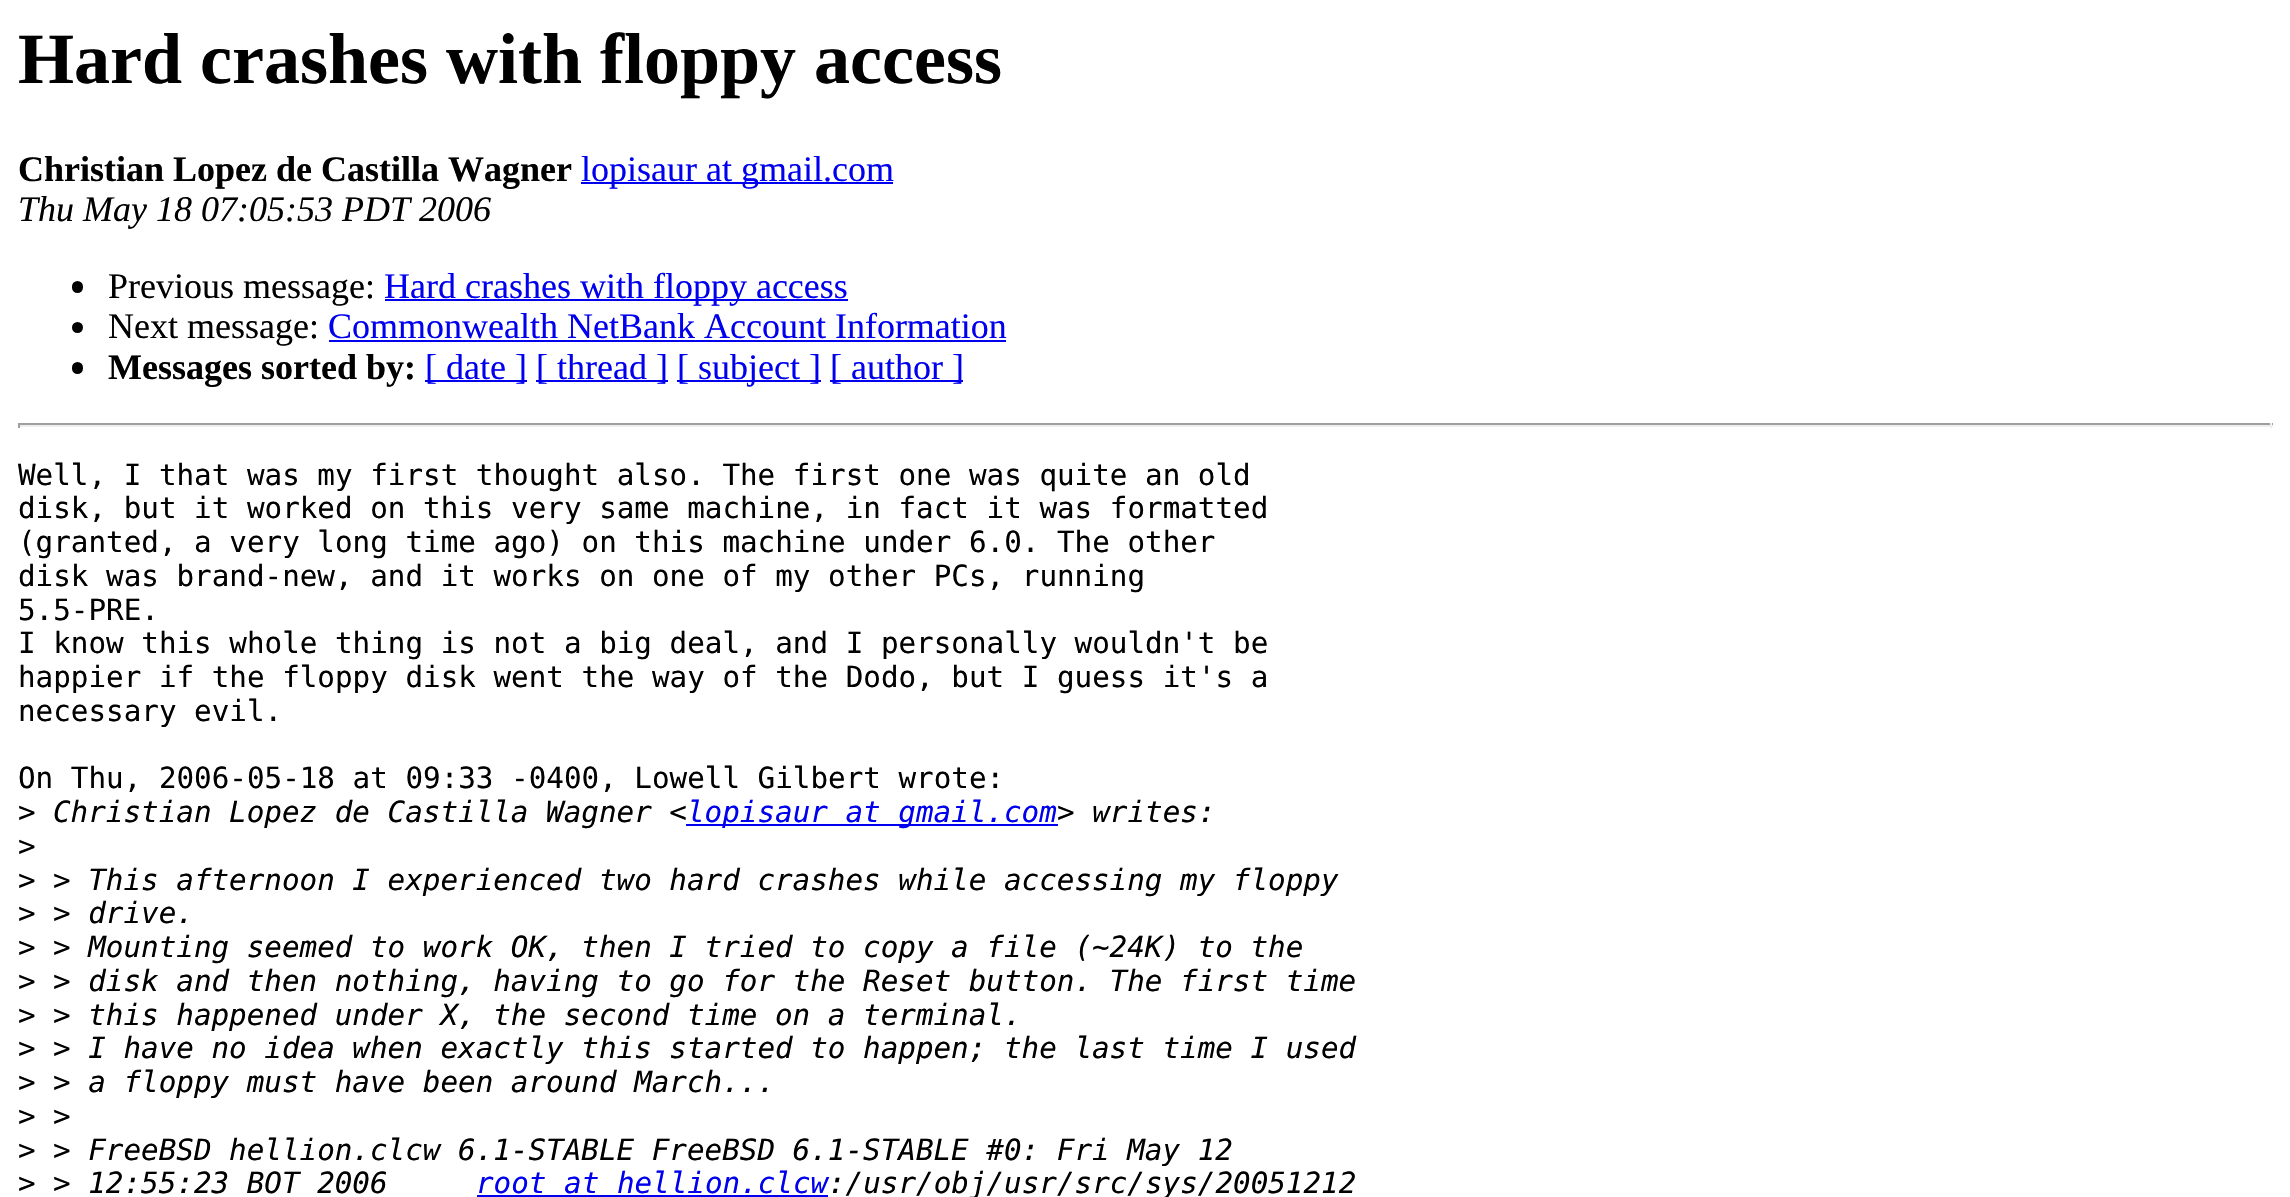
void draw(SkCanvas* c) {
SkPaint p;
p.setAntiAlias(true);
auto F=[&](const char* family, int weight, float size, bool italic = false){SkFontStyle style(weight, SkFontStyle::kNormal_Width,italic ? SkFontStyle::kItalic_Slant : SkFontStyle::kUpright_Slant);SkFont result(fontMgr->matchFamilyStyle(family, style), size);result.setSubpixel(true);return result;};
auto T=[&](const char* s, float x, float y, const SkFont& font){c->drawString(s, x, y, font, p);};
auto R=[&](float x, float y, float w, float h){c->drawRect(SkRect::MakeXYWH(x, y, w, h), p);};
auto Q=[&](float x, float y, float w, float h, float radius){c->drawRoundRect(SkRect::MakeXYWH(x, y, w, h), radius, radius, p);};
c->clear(0xffffffff);
auto f1 = F("Liberation Serif",700,72);
p.setColor(0xff000000);
T("Hard crashes with floppy access",18,83,f1);
auto f2 = F("Liberation Serif",700,36);
T("Christian Lopez de Castilla Wagner",18,181,f2);
p.setColor(0xff0000ee);
R(581,182,312,2);
auto f3 = F("Liberation Serif",400,36);
T("lopisaur at gmail.com",581,181,f3);
auto f4 = F("Liberation Serif",400,36,true);
p.setColor(0xff000000);
T("Thu May 18 07:05:53 PDT 2006",18,221,f4);
Q(72,281,11,12,5.5);
T("Previous message:",108,298,f3);
p.setColor(0xff0000ee);
R(385,299,463,2);
T("Hard crashes with floppy access",384,298,f3);
p.setColor(0xff000000);
c->drawCircle(77.5,327.5,5.5,p);
T("Next message:",108,338,f3);
p.setColor(0xff0000ee);
T("Commonwealth NetBank Account Information",328,338,f3);
R(329,340,677,2);
p.setColor(0xff000000);
Q(72,362,11,12,5.5);
T("Messages sorted by:",108,379,f2);
p.setColor(0xff0000ee);
R(425,380,102,2);
T("[ date ]",425,379,f3);
R(536,380,132,2);
T("[ thread ]",536,379,f3);
R(677,380,144,2);
T("[ subject ]",677,379,f3);
R(830,380,133,2);
T("[ author ]",830,379,f3);
p.setColor(0xff9f9f9f);
R(18,423,2255,2);
p.setColor(0xffeeeeee);
R(2270,423,2,5);
R(18,425,2255,2);
p.setColor(0xff9f9f9f);
R(18,423,2,5);
auto f5 = F("DejaVu Sans Mono",400,29.25);
p.setColor(0xff000000);
T("Well, I that was my first thought also. The first one was quite an old",18,485,f5);
T("disk, but it worked on this very same machine, in fact it was formatted",18,518,f5);
T("(granted, a very long time ago) on this machine under 6.0. The other",18,552,f5);
T("disk was brand-new, and it works on one of my other PCs, running",18,586,f5);
T("5.5-PRE.",18,620,f5);
T("I know this whole thing is not a big deal, and I personally wouldn't be",18,653,f5);
T("happier if the floppy disk went the way of the Dodo, but I guess it's a",18,687,f5);
T("necessary evil.",18,721,f5);
T("On Thu, 2006-05-18 at 09:33 -0400, Lowell Gilbert wrote:",18,788,f5);
T(">",18,822,f5);
auto f6 = F("DejaVu Sans Mono",400,29.25,true);
T("Christian Lopez de Castilla Wagner <",53,822,f6);
p.setColor(0xff0000ee);
R(686,824,372,2);
T("lopisaur at gmail.com",687,822,f6);
p.setColor(0xff000000);
T("> writes:",1057,822,f6);
T(">",18,856,f5);
T(">",18,890,f5);
T("> This afternoon I experienced two hard crashes while accessing my floppy",53,890,f6);
T(">",18,923,f5);
T("> drive.",53,923,f6);
T(">",18,957,f5);
T("> Mounting seemed to work OK, then I tried to copy a file (~24K) to the",53,957,f6);
T(">",18,991,f5);
T("> disk and then nothing, having to go for the Reset button. The first time",53,991,f6);
T(">",18,1025,f5);
T("> this happened under X, the second time on a terminal.",53,1025,f6);
T(">",18,1058,f5);
T("> I have no idea when exactly this started to happen; the last time I used",53,1058,f6);
T(">",18,1092,f5);
T("> a floppy must have been around March...",53,1092,f6);
T(">",18,1126,f5);
T(">",53,1126,f6);
T(">",18,1160,f5);
T("> FreeBSD hellion.clcw 6.1-STABLE FreeBSD 6.1-STABLE #0: Fri May 12",53,1160,f6);
T(">",18,1193,f5);
T("> 12:55:23 BOT 2006",53,1193,f6);
p.setColor(0xff0000ee);
T("root at hellion.clcw",476,1193,f6);
R(477,1195,351,2);
p.setColor(0xff000000);
T(":/usr/obj/usr/src/sys/20051212",828,1193,f6);
}
